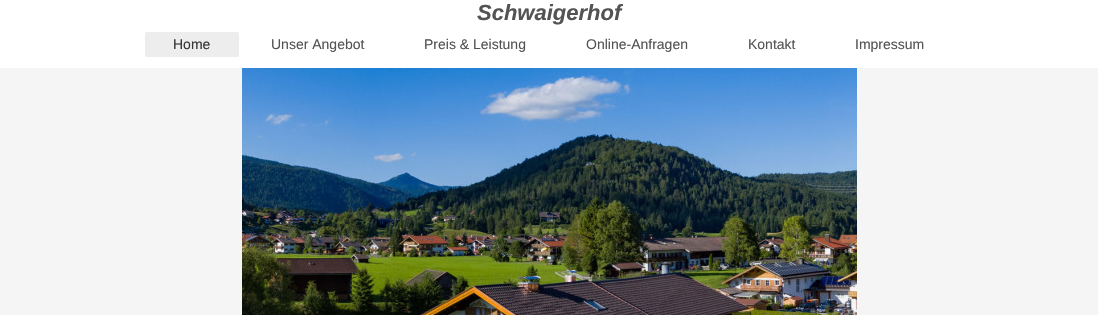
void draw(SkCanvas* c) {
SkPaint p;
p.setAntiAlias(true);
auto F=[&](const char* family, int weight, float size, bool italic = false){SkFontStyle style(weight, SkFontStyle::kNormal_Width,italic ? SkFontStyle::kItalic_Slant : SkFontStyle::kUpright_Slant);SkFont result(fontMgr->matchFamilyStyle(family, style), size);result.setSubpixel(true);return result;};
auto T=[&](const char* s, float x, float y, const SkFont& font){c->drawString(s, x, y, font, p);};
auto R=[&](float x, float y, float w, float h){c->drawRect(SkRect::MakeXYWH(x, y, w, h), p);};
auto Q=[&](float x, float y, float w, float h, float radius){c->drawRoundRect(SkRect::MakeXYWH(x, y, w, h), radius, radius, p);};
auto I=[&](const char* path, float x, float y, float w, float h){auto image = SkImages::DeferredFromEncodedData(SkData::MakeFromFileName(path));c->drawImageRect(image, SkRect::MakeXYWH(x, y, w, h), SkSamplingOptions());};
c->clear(0xffffffff);
auto f1 = F("Liberation Sans",700,22,true);
p.setColor(0xff535353);
T("Schwaigerhof",477,20,f1);
p.setColor(0xffededed);
Q(145,32,94,25,2);
auto f2 = F("Liberation Sans",400,14);
p.setColor(0xff353535);
T("Home",173,49,f2);
p.setColor(0xff535353);
T("Unser Angebot",271,49,f2);
T("Preis & Leistung",424,49,f2);
T("Online-Anfragen",586,49,f2);
T("Kontakt",748,49,f2);
T("Impressum",855,49,f2);
p.setColor(0xfff5f5f5);
R(0,68,1098,247);
I("1.png",242,68,615,247);
}
